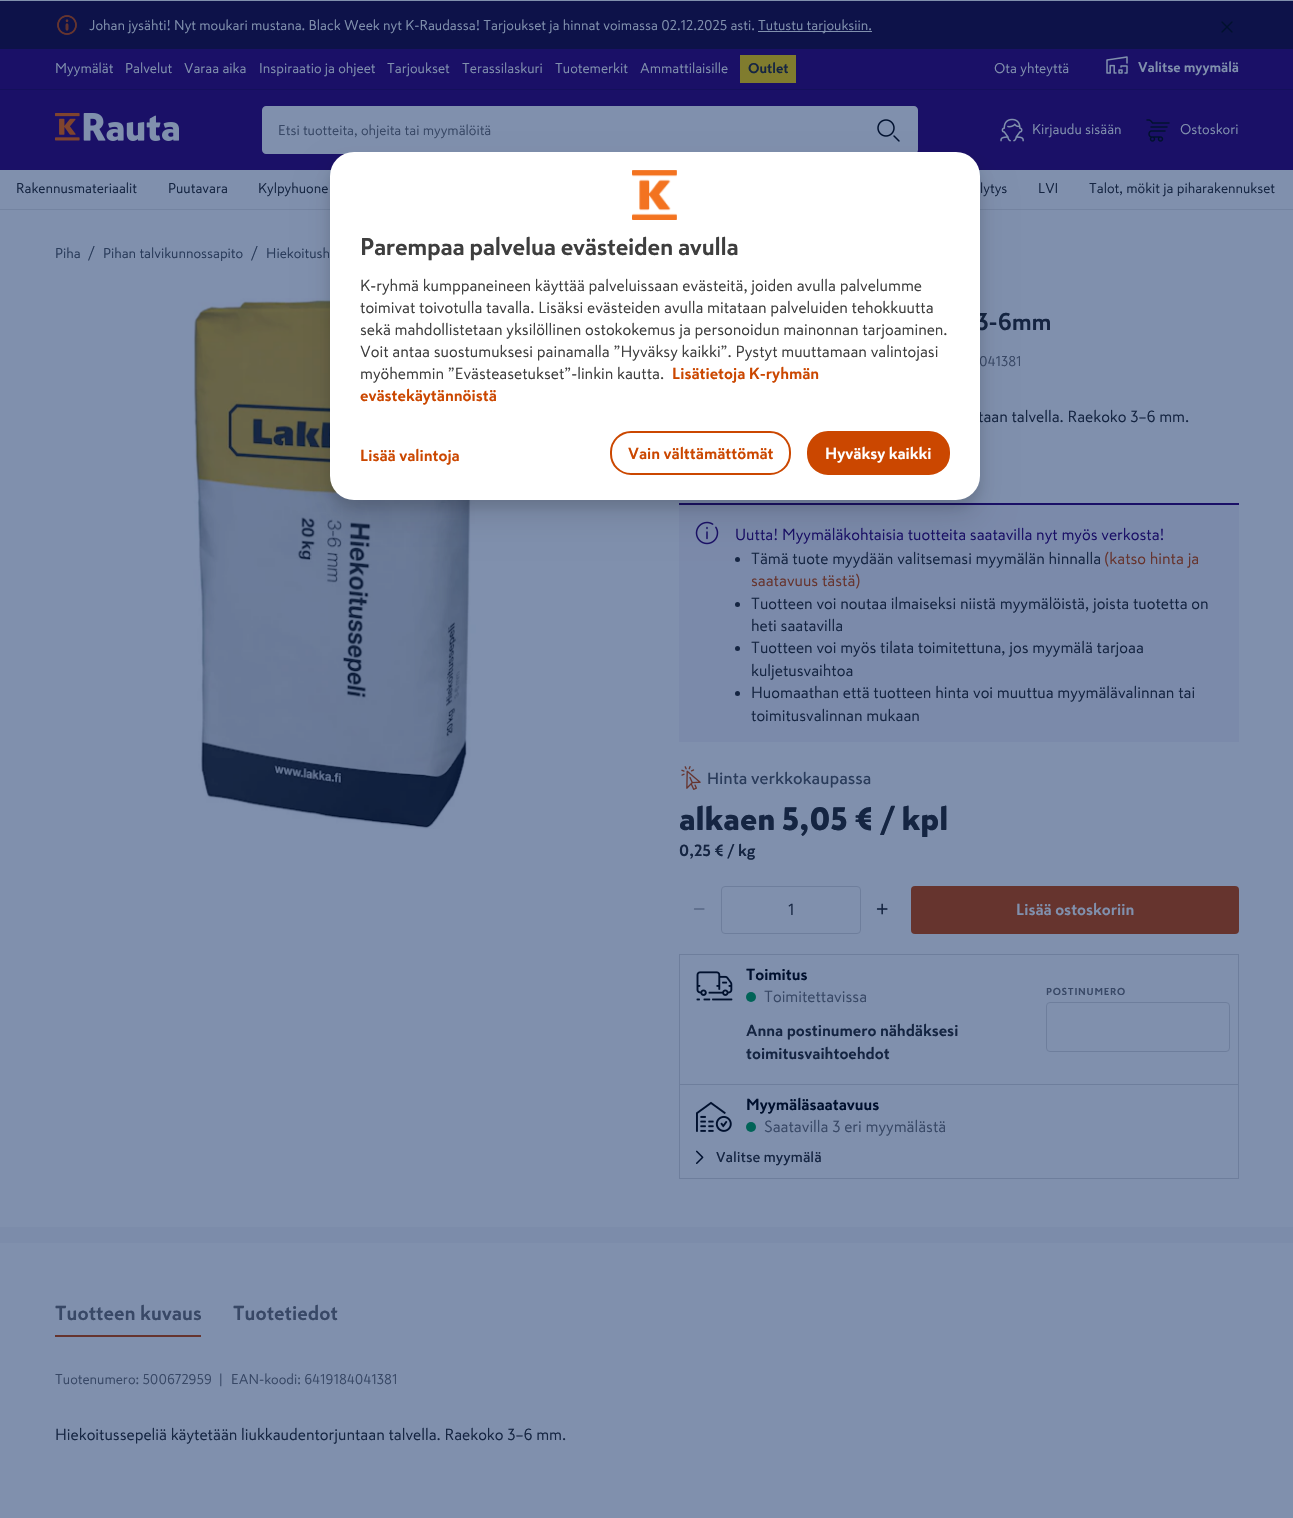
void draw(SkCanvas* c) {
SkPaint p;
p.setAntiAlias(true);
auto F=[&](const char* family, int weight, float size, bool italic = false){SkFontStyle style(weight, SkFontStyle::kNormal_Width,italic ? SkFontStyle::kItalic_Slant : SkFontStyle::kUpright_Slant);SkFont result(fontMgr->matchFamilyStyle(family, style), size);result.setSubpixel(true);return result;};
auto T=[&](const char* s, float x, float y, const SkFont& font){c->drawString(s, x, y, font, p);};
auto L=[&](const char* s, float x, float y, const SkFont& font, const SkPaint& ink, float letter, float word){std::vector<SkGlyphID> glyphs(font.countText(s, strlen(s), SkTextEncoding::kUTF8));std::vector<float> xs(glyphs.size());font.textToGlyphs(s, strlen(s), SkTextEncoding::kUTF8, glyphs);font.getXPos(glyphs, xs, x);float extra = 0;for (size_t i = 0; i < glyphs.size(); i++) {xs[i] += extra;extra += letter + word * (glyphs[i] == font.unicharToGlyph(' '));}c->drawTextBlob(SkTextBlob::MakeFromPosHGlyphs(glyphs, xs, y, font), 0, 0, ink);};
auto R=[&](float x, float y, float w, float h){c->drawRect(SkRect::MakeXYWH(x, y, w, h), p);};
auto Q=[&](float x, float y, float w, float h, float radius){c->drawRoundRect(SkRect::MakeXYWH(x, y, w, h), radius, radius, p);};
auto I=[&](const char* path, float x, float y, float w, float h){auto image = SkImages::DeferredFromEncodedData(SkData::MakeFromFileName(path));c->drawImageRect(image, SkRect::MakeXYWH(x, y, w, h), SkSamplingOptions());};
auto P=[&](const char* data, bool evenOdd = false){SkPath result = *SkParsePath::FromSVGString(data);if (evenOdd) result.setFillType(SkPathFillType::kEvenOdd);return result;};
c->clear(0xff8090ad);
p.setColor(0xff0d1249);
R(0,1,1293,48);
I("1.png",57,15,20,20);
auto f1 = F("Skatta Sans",400,14);
p.setColor(0xff8090ad);
T("Johan jysähti! Nyt moukari mustana. Black Week nyt K-Raudassa! Tarjoukset ja hinnat voimassa 02.12.2025 asti.",89,30,f1);
R(758,31,114,1);
T("Tutustu tarjouksiin.",758,30,f1);
I("2.png",1221,21,12,12);
p.setColor(0xff1a1067);
R(0,49,1293,40);
p.setColor(0xff14105b);
R(0,89,1293,1);
p.setColor(0xff8090ad);
T("Myymälät",55,73,f1);
T("Palvelut",125,73,f1);
T("Varaa aika",184,73,f1);
T("Inspiraatio ja ohjeet",259,73,f1);
T("Tarjoukset",387,73,f1);
T("Terassilaskuri",462,73,f1);
T("Tuotemerkit",555,73,f1);
T("Ammattilaisille",640,73,f1);
p.setColor(0xff807c2e);
R(740,55,56,28);
auto f2 = F("Skatta Sans",700,14);
p.setColor(0xff152542);
T("Outlet",748,73,f2);
p.setColor(0xff8090ad);
T("Ota yhteyttä",994,73,f1);
I("3.png",1106,56,22,18);
T("Valitse myymälä",1138,72,f2);
p.setColor(0xff1a1067);
R(0,90,1293,80);
I("4.png",55,113,124,28);
p.setColor(0xff8090ad);
c->drawPath(P("M266 106h594v48h-594c-2 0-4-2-4-4v-40c0-2 2-4 4-4z"),p);
p.setColor(0xff384866);
T("Etsi tuotteita, ohjeita tai myymälöitä",278,135,f1);
p.setColor(0xff8090ad);
c->drawPath(P("M860 106h54c2 0 4 2 4 4v40c0 2-2 4-4 4h-54z"),p);
I("5.png",877,119,23,23);
I("6.png",1000,118,24,24);
T("Kirjaudu sisään",1032,134,f1);
I("7.png",1146,119,24,23);
T("Ostoskori",1180,134,f1);
p.setColor(0xff7484a1);
R(0,209,1293,1);
p.setColor(0xff152542);
T("Rakennusmateriaalit",16,193,f1);
T("Puutavara",168,193,f1);
T("Kylpyhuone",258,193,f1);
T("lytys",980,193,f1);
T("LVI",1038,193,f1);
T("Talot, mökit ja piharakennukset",1089,193,f1);
p.setColor(0xff2a3c5b);
T("Piha",55,258,f1);
auto f3 = F("Skatta Sans",400,16);
T("/",88,258,f3);
T("Pihan talvikunnossapito",103,258,f1);
T("/",251,258,f3);
T("Hiekoitush",266,258,f1);
I("8.png",193,298,283,531);
auto f4 = F("Skatta Sans",700,24);
p.setColor(0xff152542);
T("3-6mm",976,330,f4);
p.setColor(0xff384866);
T("041381",979,366,f1);
p.setColor(0xff152542);
T("taan talvella. Raekoko 3–6 mm.",978,422,f3);
p.setColor(0xff7b8aaa);
R(679,505,560,237);
p.setColor(0xff1a1067);
R(679,503,560,2);
I("9.png",695,521,24,24);
T("Uutta! Myymäläkohtaisia tuotteita saatavilla nyt myös verkosta!",735,540,f3);
p.setColor(0xff152542);
c->drawCircle(737.5,559.5,2.5,p);
T("Tämä tuote myydään valitsemasi myymälän hinnalla",751,564,f3);
p.setColor(0xff66342e);
T("(katso hinta ja",1104,564,f3);
T("saatavuus tästä)",751,586,f3);
p.setColor(0xff152542);
c->drawCircle(737.5,604.5,2.5,p);
T("Tuotteen voi noutaa ilmaiseksi niistä myymälöistä, joista tuotetta on",751,609,f3);
T("heti saatavilla",751,631,f3);
c->drawCircle(737.5,648.5,2.5,p);
T("Tuotteen voi myös tilata toimitettuna, jos myymälä tarjoaa",751,653,f3);
T("kuljetusvaihtoa",751,676,f3);
c->drawCircle(737.5,693.5,2.5,p);
T("Huomaathan että tuotteen hinta voi muuttua myymälävalinnan tai",751,698,f3);
T("toimitusvalinnan mukaan",751,721,f3);
I("10.png",681,766,20,24);
auto f5 = F("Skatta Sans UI",500,16);
p.setColor(0xff2a3c5b);
T("Hinta verkkokaupassa",707,784,f5);
auto f6 = F("Skatta Sans",900,32);
p.setColor(0xff152542);
T("alkaen 5,05 € / kpl",679,830,f6);
auto f7 = F("Skatta Sans",700,16);
T("0,25 € / kg",679,856,f7);
auto f8 = F("Skatta Sans",400,24);
p.setColor(0xff5a6a88);
T("−",692,917,f8);
p.setStroke(true);
p.setStrokeWidth(1);
p.setColor(0xff6e7e9c);
c->drawRoundRect(SkRect::MakeXYWH(721.5,886.5,139,47),3.5,3.5,p);
p.setStroke(false);
p.setColor(0xff152542);
T("1",788,915,f3);
T("+",875,917,f8);
p.setColor(0xff66342e);
Q(911,886,328,48,4);
p.setColor(0xff8090ad);
T("Lisää ostoskoriin",1016,915,f7);
p.setColor(0xff6e7e9c);
R(679,954,560,1);
R(1238,954,1,130);
R(679,954,1,130);
I("11.png",696,971,37,30);
p.setColor(0xff00102e);
T("Toimitus",746,980,f7);
p.setColor(0xff006357);
c->drawCircle(751,997,5,p);
p.setColor(0xff384866);
T("Toimitettavissa",764,1002,f3);
p.setColor(0xff152542);
T("Anna postinumero nähdäksesi",746,1036,f7);
T("toimitusvaihtoehdot",746,1059,f7);
auto f9 = F("Skatta Sans",700,10);
p.setColor(0xff384866);
L("POSTINUMERO",1046,995,f9,p,.75,0);
p.setStroke(true);
p.setColor(0xff6e7e9c);
c->drawRoundRect(SkRect::MakeXYWH(1046.5,1002.5,183,49),3.5,3.5,p);
c->drawRect(SkRect::MakeXYWH(679.5,1084.5,559,94),p);
I("12.png",696,1101,36,31);
p.setStroke(false);
p.setColor(0xff00102e);
T("Myymäläsaatavuus",746,1110,f7);
p.setColor(0xff006357);
c->drawCircle(751,1127,5,p);
p.setColor(0xff384866);
T("Saatavilla 3 eri myymälästä",764,1132,f3);
I("13.png",696,1150,8,14);
auto f10 = F("Skatta Sans UI",500,14);
p.setColor(0xff152542);
T("Valitse myymälä",716,1162,f10);
p.setColor(0xff7c8caa);
R(0,1227,1293,16);
p.setColor(0xff66342e);
R(55,1335,146,2);
auto f11 = F("Skatta Sans",700,20);
p.setColor(0xff384866);
T("Tuotteen kuvaus",55,1320,f11);
T("Tuotetiedot",233,1320,f11);
T("Tuotenumero: 500672959",55,1384,f1);
T("|",219,1384,f1);
T("EAN-koodi: 6419184041381",231,1384,f1);
p.setColor(0xff152542);
T("Hiekoitussepeliä käytetään liukkaudentorjuntaan talvella. Raekoko 3–6 mm.",55,1440,f3);
p.setColor(0x14000000);
p.setMaskFilter(SkMaskFilter::MakeBlur(kNormal_SkBlurStyle, 16));
c->drawRoundRect(SkRect::MakeXYWH(328,170,654,352),26,26,p);
p.setMaskFilter(nullptr);
p.setColor(0x1f000000);
p.setMaskFilter(SkMaskFilter::MakeBlur(kNormal_SkBlurStyle, 6));
c->drawRoundRect(SkRect::MakeXYWH(330,160,650,348),24,24,p);
p.setMaskFilter(nullptr);
p.setColor(0xffffffff);
Q(330,152,650,348,24);
I("14.png",632,170,45,50);
p.setColor(0xff3e3e3e);
L("Parempaa palvelua evästeiden avulla",360,255,f4,p,-.25,0);
T("K-ryhmä kumppaneineen käyttää palveluissaan evästeitä, joiden avulla palvelumme",360,291,f3);
T("toimivat toivotulla tavalla. Lisäksi evästeiden avulla mitataan palveluiden tehokkuutta",360,313,f3);
T("sekä mahdollistetaan yksilöllinen ostokokemus ja personoidun mainonnan tarjoaminen.",360,335,f3);
T("Voit antaa suostumuksesi painamalla ”Hyväksy kaikki”. Pystyt muuttamaan valintojasi",360,357,f3);
T("myöhemmin ”Evästeasetukset”-linkin kautta.",360,379,f3);
p.setColor(0xffcb4700);
T("Lisätietoja K-ryhmän",672,379,f7);
T("evästekäytännöistä",360,401,f7);
T("Lisää valintoja",360,461,f7);
p.setStroke(true);
p.setStrokeWidth(2);
c->drawRoundRect(SkRect::MakeXYWH(611,432,179,42),20,20,p);
p.setStroke(false);
T("Vain välttämättömät",628,459,f7);
c->drawRoundRect(SkRect::MakeXYWH(808,432,141,42),20,20,p);
p.setStroke(true);
c->drawRoundRect(SkRect::MakeXYWH(808,432,141,42),20,20,p);
p.setStroke(false);
p.setColor(0xffffffff);
T("Hyväksy kaikki",825,459,f7);
}
